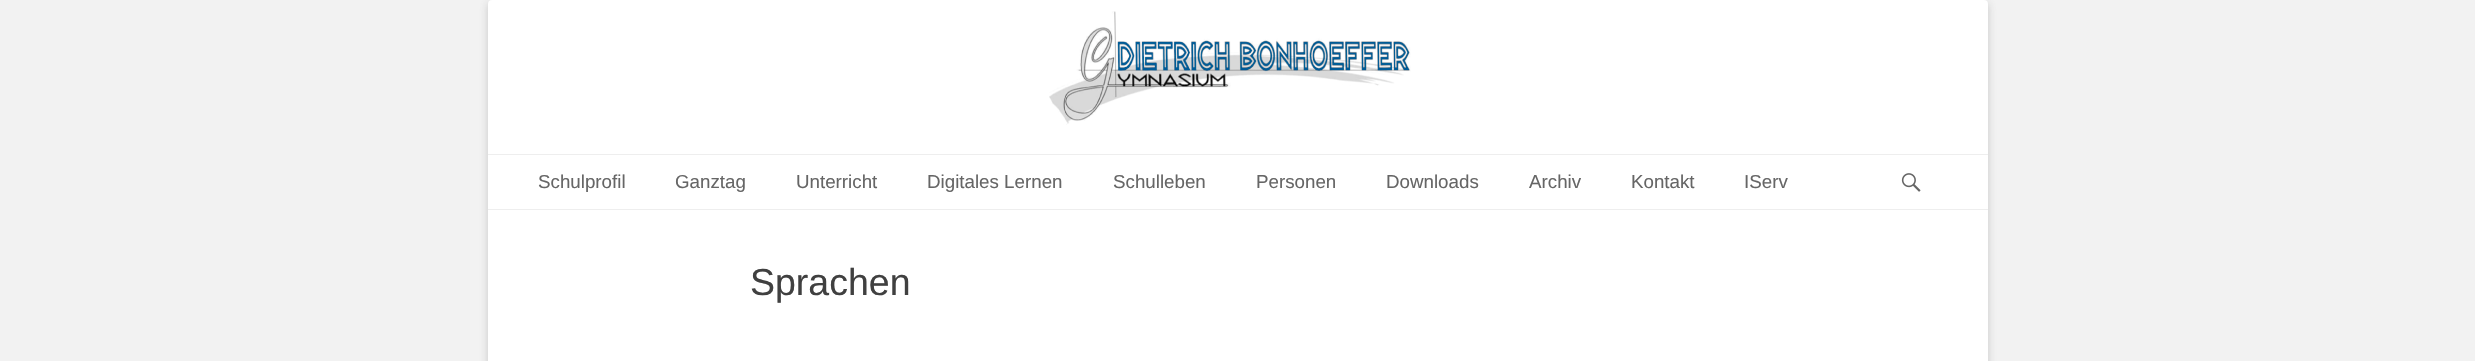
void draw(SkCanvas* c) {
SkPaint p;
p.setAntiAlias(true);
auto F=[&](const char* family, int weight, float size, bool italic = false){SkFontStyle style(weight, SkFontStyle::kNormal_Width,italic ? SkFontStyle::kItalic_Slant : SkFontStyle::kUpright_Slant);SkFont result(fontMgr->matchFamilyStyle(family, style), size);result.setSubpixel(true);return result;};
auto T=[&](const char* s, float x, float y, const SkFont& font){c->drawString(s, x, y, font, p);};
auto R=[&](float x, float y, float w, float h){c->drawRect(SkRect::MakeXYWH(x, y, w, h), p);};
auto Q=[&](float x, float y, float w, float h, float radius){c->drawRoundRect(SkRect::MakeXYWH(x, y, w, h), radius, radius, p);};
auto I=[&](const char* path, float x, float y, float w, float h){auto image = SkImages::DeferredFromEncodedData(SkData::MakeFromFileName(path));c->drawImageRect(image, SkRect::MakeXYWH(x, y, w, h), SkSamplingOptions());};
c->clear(0xfff2f2f2);
p.setColor(0x4d646464);
p.setMaskFilter(SkMaskFilter::MakeBlur(kNormal_SkBlurStyle, 4));
c->drawRoundRect(SkRect::MakeXYWH(488,3,1500,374),4,4,p);
p.setMaskFilter(nullptr);
p.setColor(0xffffffff);
Q(488,0,1500,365,4);
I("1.png",1049,11,362,114);
p.setColor(0xffeeeeee);
R(488,154,1500,1);
R(488,209,1500,1);
auto f1 = F("Liberation Sans",400,18.75);
p.setColor(0xff666666);
T("Schulprofil",538,188,f1);
T("Ganztag",675,188,f1);
T("Unterricht",796,188,f1);
T("Digitales Lernen",927,188,f1);
T("Schulleben",1113,188,f1);
T("Personen",1256,188,f1);
T("Downloads",1386,188,f1);
T("Archiv",1529,188,f1);
T("Kontakt",1631,188,f1);
T("IServ",1744,188,f1);
I("2.png",1901,173,20,19);
auto f2 = F("Liberation Sans",400,37.5);
p.setColor(0xff404040);
T("Sprachen",750,295,f2);
}
